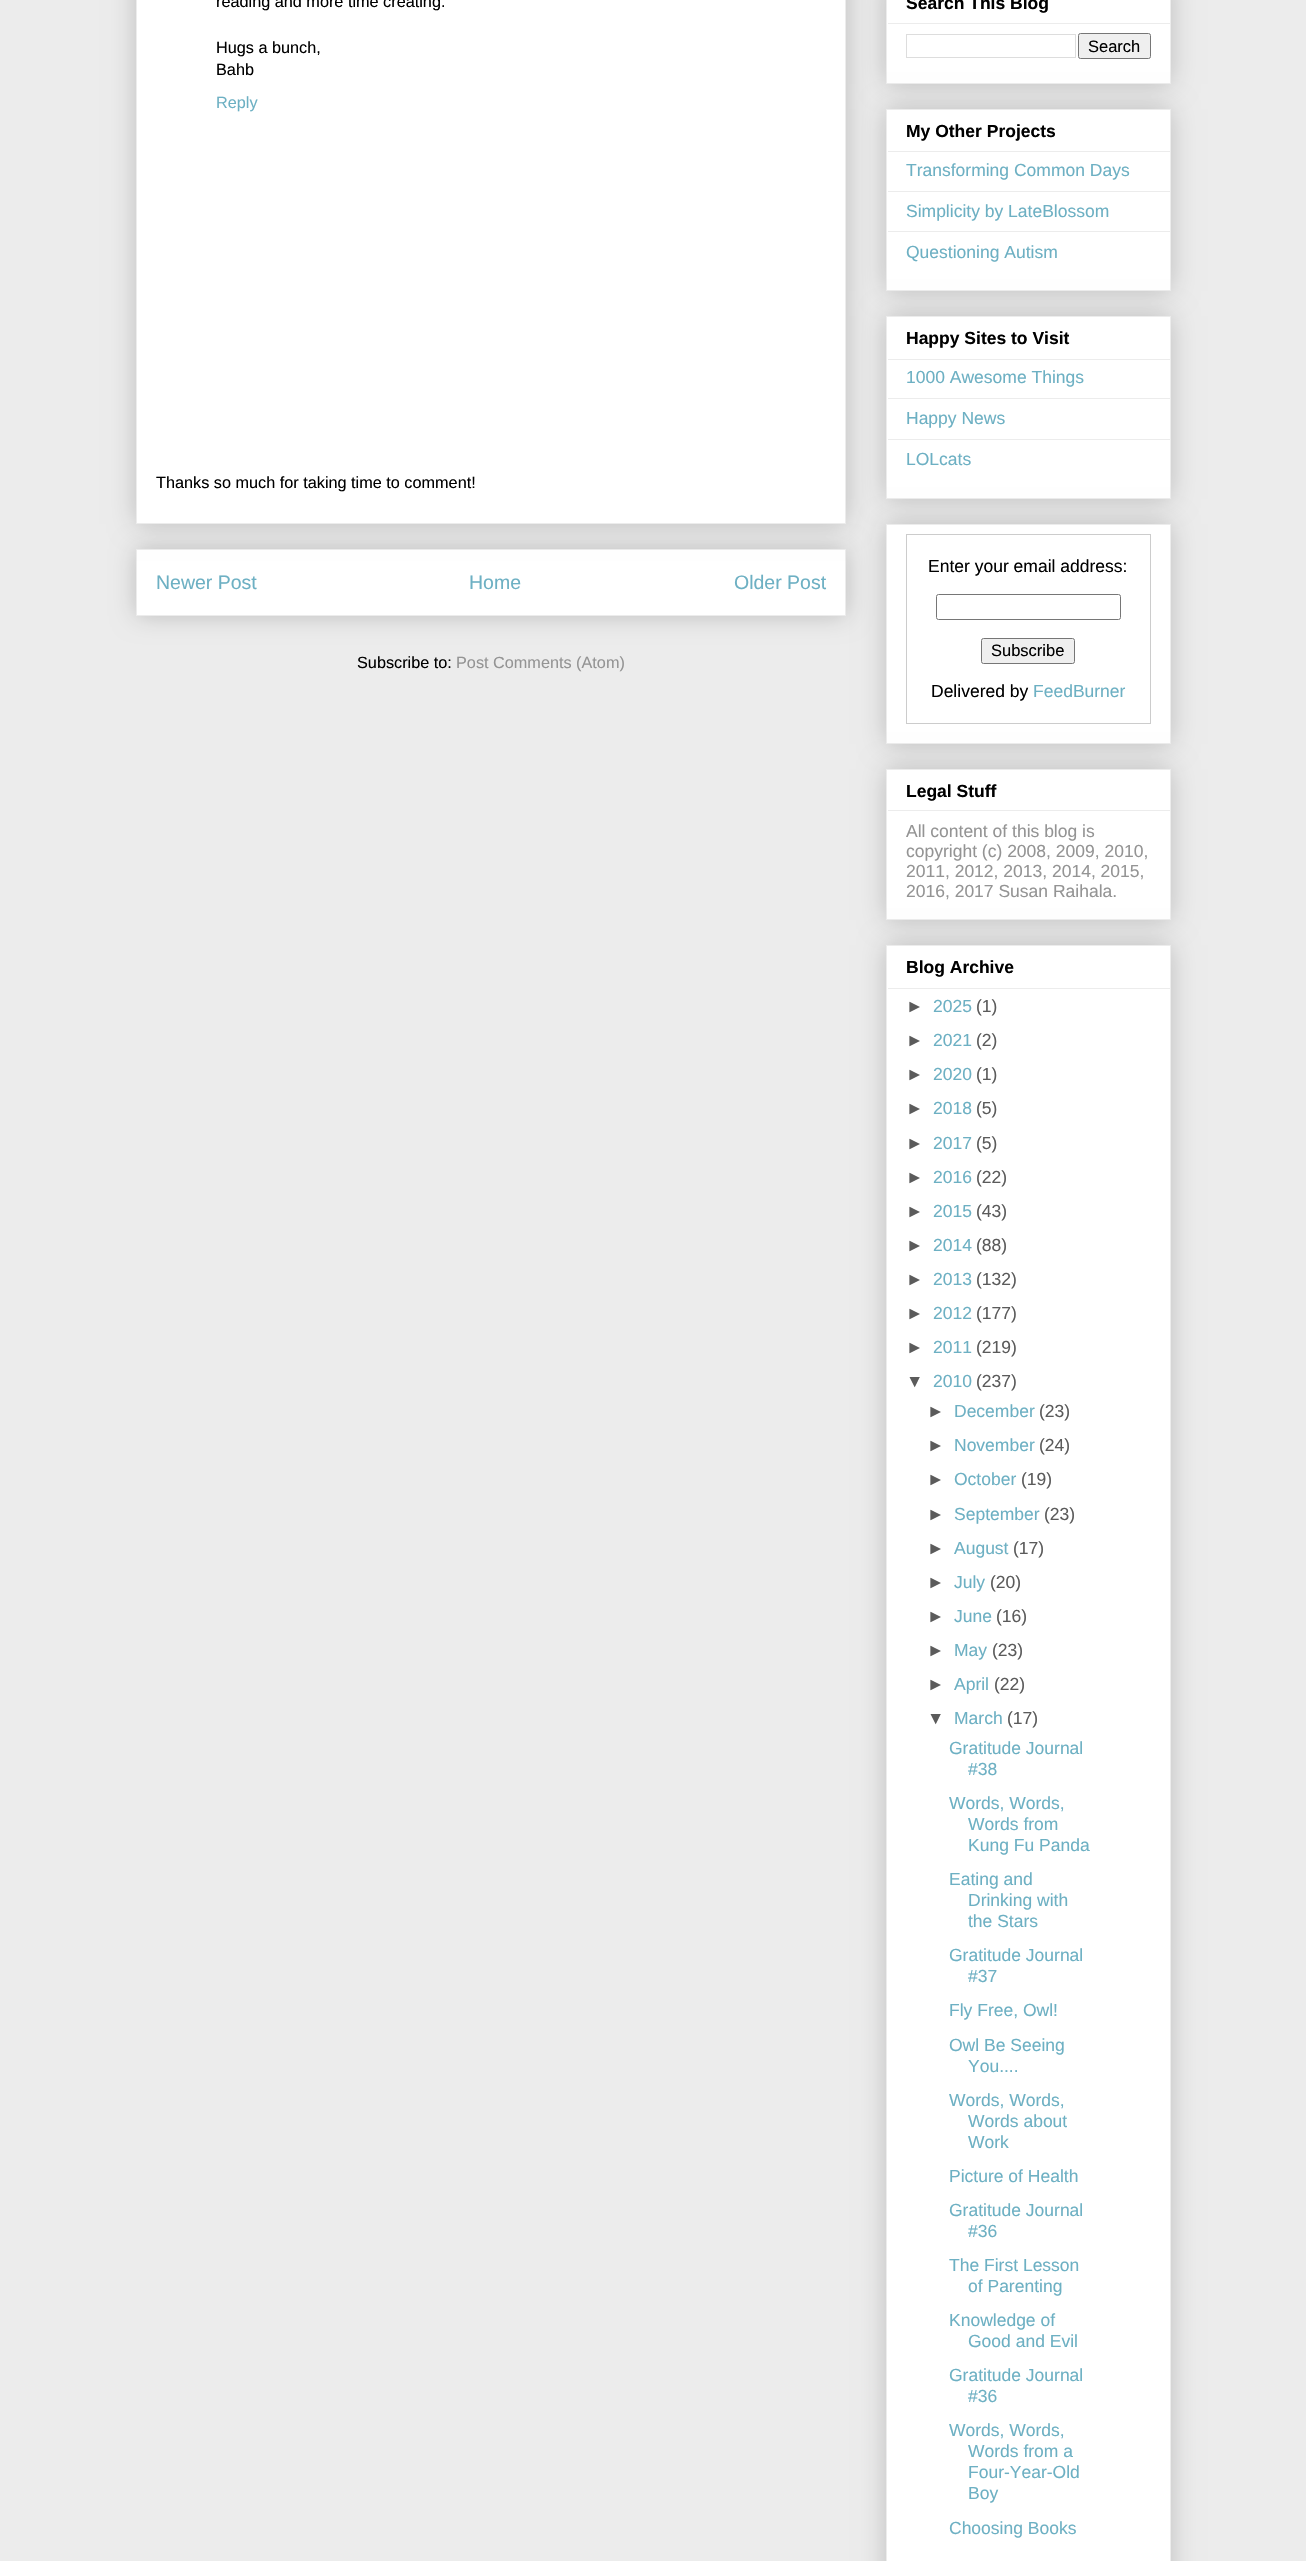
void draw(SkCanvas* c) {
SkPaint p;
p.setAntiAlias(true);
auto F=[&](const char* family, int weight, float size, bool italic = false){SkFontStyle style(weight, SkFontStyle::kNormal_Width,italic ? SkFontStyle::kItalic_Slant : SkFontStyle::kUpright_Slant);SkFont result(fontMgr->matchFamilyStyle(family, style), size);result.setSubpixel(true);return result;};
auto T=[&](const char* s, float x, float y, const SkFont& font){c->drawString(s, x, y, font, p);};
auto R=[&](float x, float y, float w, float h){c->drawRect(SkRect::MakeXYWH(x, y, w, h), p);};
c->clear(0xffececec);
p.setColor(0x33000000);
p.setMaskFilter(SkMaskFilter::MakeBlur(kNormal_SkBlurStyle, 12.5));
c->drawRect(SkRect::MakeXYWH(136,549,710,67),p);
p.setMaskFilter(nullptr);
p.setColor(0xffffffff);
c->drawRect(SkRect::MakeXYWH(136.5,549.5,709,66),p);
p.setStroke(true);
p.setStrokeWidth(1);
p.setColor(0xffececec);
c->drawRect(SkRect::MakeXYWH(136.5,549.5,709,66),p);
p.setStroke(false);
p.setColor(0x33000000);
p.setMaskFilter(SkMaskFilter::MakeBlur(kNormal_SkBlurStyle, 12.5));
c->drawRect(SkRect::MakeXYWH(136,-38,710,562),p);
p.setMaskFilter(nullptr);
p.setColor(0xffffffff);
c->drawRect(SkRect::MakeXYWH(136.5,-.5,709,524),p);
p.setStroke(true);
p.setColor(0xffececec);
c->drawRect(SkRect::MakeXYWH(136.5,-.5,709,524),p);
auto f1 = F("Liberation Sans",400,16.25);
p.setStroke(false);
p.setColor(0xff000000);
T("reading and more time creating.",216,7,f1);
T("Hugs a bunch,",216,53,f1);
T("Bahb",216,75,f1);
p.setColor(0xff6db0c3);
T("Reply",216,108,f1);
p.setColor(0xff000000);
T("Thanks so much for taking time to comment!",156,488,f1);
auto f2 = F("Liberation Sans",400,19.5);
p.setColor(0xff6db0c3);
T("Newer Post",156,589,f2);
T("Home",469,589,f2);
T("Older Post",734,589,f2);
p.setColor(0xff000000);
T("Subscribe to:",357,668,f1);
p.setColor(0xff949494);
T("Post Comments (Atom)",456,668,f1);
p.setColor(0x33000000);
p.setMaskFilter(SkMaskFilter::MakeBlur(kNormal_SkBlurStyle, 12.5));
c->drawRect(SkRect::MakeXYWH(886,-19,285,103),p);
p.setMaskFilter(nullptr);
p.setColor(0xffffffff);
c->drawRect(SkRect::MakeXYWH(886.5,-.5,284,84),p);
p.setStroke(true);
p.setColor(0xffececec);
c->drawRect(SkRect::MakeXYWH(886.5,-.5,284,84),p);
auto f3 = F("Liberation Sans",700,17.5);
p.setStroke(false);
p.setColor(0xff000000);
T("Search This Blog",906,9,f3);
p.setColor(0xffececec);
R(888,23,282,1);
p.setStroke(true);
p.setColor(0xffdddddd);
c->drawRect(SkRect::MakeXYWH(906.5,34.5,169,23),p);
p.setStroke(false);
p.setColor(0xffefefef);
c->drawRoundRect(SkRect::MakeXYWH(1078.5,33.5,72,25),2,2,p);
p.setStroke(true);
p.setColor(0xff767676);
c->drawRoundRect(SkRect::MakeXYWH(1078.5,33.5,72,25),2,2,p);
auto f4 = F("Liberation Sans",400,16.5);
p.setStroke(false);
p.setColor(0xff000000);
T("Search",1088,52,f4);
p.setColor(0x33000000);
p.setMaskFilter(SkMaskFilter::MakeBlur(kNormal_SkBlurStyle, 12.5));
c->drawRect(SkRect::MakeXYWH(886,109,285,182),p);
p.setMaskFilter(nullptr);
p.setColor(0xffffffff);
c->drawRect(SkRect::MakeXYWH(886.5,109.5,284,181),p);
p.setStroke(true);
p.setColor(0xffececec);
c->drawRect(SkRect::MakeXYWH(886.5,109.5,284,181),p);
p.setStroke(false);
p.setColor(0xff000000);
T("My Other Projects",906,137,f3);
p.setColor(0xffececec);
R(888,151,282,1);
auto f5 = F("Liberation Sans",400,17.5);
p.setColor(0xff6db0c3);
T("Transforming Common Days",906,176,f5);
p.setColor(0xffececec);
R(888,191,282,1);
p.setColor(0xff6db0c3);
T("Simplicity by LateBlossom",906,217,f5);
p.setColor(0xffececec);
R(888,231,282,1);
p.setColor(0xff6db0c3);
T("Questioning Autism",906,258,f5);
p.setColor(0x33000000);
p.setMaskFilter(SkMaskFilter::MakeBlur(kNormal_SkBlurStyle, 12.5));
c->drawRect(SkRect::MakeXYWH(886,316,285,183),p);
p.setMaskFilter(nullptr);
p.setColor(0xffffffff);
c->drawRect(SkRect::MakeXYWH(886.5,316.5,284,182),p);
p.setStroke(true);
p.setColor(0xffececec);
c->drawRect(SkRect::MakeXYWH(886.5,316.5,284,182),p);
p.setStroke(false);
p.setColor(0xff000000);
T("Happy Sites to Visit",906,344,f3);
p.setColor(0xffececec);
R(888,359,282,1);
p.setColor(0xff6db0c3);
T("1000 Awesome Things",906,383,f5);
p.setColor(0xffececec);
R(888,398,282,1);
p.setColor(0xff6db0c3);
T("Happy News",906,424,f5);
p.setColor(0xffececec);
R(888,439,282,1);
p.setColor(0xff6db0c3);
T("LOLcats",906,465,f5);
p.setColor(0x33000000);
p.setMaskFilter(SkMaskFilter::MakeBlur(kNormal_SkBlurStyle, 12.5));
c->drawRect(SkRect::MakeXYWH(886,524,285,220),p);
p.setMaskFilter(nullptr);
p.setColor(0xffffffff);
c->drawRect(SkRect::MakeXYWH(886.5,524.5,284,219),p);
p.setStroke(true);
p.setColor(0xffececec);
c->drawRect(SkRect::MakeXYWH(886.5,524.5,284,219),p);
p.setColor(0xffcccccc);
c->drawRect(SkRect::MakeXYWH(906.5,534.5,244,189),p);
p.setStroke(false);
p.setColor(0xff000000);
T("Enter your email address:",928,572,f5);
p.setStroke(true);
p.setColor(0xff767676);
c->drawRoundRect(SkRect::MakeXYWH(936.5,594.5,184,25),2,2,p);
p.setStroke(false);
p.setColor(0xffefefef);
c->drawRoundRect(SkRect::MakeXYWH(981.5,638.5,93,25),2,2,p);
p.setStroke(true);
p.setColor(0xff767676);
c->drawRoundRect(SkRect::MakeXYWH(981.5,638.5,93,25),2,2,p);
p.setStroke(false);
p.setColor(0xff000000);
T("Subscribe",991,656,f4);
T("Delivered by",931,697,f5);
p.setColor(0xff6db0c3);
T("FeedBurner",1033,697,f5);
p.setColor(0x33000000);
p.setMaskFilter(SkMaskFilter::MakeBlur(kNormal_SkBlurStyle, 12.5));
c->drawRect(SkRect::MakeXYWH(886,769,285,151),p);
p.setMaskFilter(nullptr);
p.setColor(0xffffffff);
c->drawRect(SkRect::MakeXYWH(886.5,769.5,284,150),p);
p.setStroke(true);
p.setColor(0xffececec);
c->drawRect(SkRect::MakeXYWH(886.5,769.5,284,150),p);
p.setStroke(false);
p.setColor(0xff000000);
T("Legal Stuff",906,797,f3);
p.setColor(0xffececec);
R(888,810,282,1);
p.setColor(0xff949494);
T("All content of this blog is",906,837,f5);
T("copyright (c) 2008, 2009, 2010,",906,857,f5);
T("2011, 2012, 2013, 2014, 2015,",906,877,f5);
T("2016, 2017 Susan Raihala.",906,897,f5);
p.setColor(0x33000000);
p.setMaskFilter(SkMaskFilter::MakeBlur(kNormal_SkBlurStyle, 12.5));
c->drawRect(SkRect::MakeXYWH(886,945,285,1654),p);
p.setMaskFilter(nullptr);
p.setColor(0xffffffff);
c->drawRect(SkRect::MakeXYWH(886.5,945.5,284,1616),p);
p.setStroke(true);
p.setColor(0xffececec);
c->drawRect(SkRect::MakeXYWH(886.5,945.5,284,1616),p);
p.setStroke(false);
p.setColor(0xff000000);
T("Blog Archive",906,973,f3);
p.setColor(0xffececec);
R(888,988,282,1);
p.setColor(0xff5b5b5b);
T("►",906,1012,f5);
p.setColor(0xff6db0c3);
T("2025",933,1012,f5);
p.setColor(0xff5b5b5b);
T("(1)",976,1012,f5);
T("►",906,1046,f5);
p.setColor(0xff6db0c3);
T("2021",933,1046,f5);
p.setColor(0xff5b5b5b);
T("(2)",976,1046,f5);
T("►",906,1080,f5);
p.setColor(0xff6db0c3);
T("2020",933,1080,f5);
p.setColor(0xff5b5b5b);
T("(1)",976,1080,f5);
T("►",906,1114,f5);
p.setColor(0xff6db0c3);
T("2018",933,1114,f5);
p.setColor(0xff5b5b5b);
T("(5)",976,1114,f5);
T("►",906,1149,f5);
p.setColor(0xff6db0c3);
T("2017",933,1149,f5);
p.setColor(0xff5b5b5b);
T("(5)",976,1149,f5);
T("►",906,1183,f5);
p.setColor(0xff6db0c3);
T("2016",933,1183,f5);
p.setColor(0xff5b5b5b);
T("(22)",976,1183,f5);
T("►",906,1217,f5);
p.setColor(0xff6db0c3);
T("2015",933,1217,f5);
p.setColor(0xff5b5b5b);
T("(43)",976,1217,f5);
T("►",906,1251,f5);
p.setColor(0xff6db0c3);
T("2014",933,1251,f5);
p.setColor(0xff5b5b5b);
T("(88)",976,1251,f5);
T("►",906,1285,f5);
p.setColor(0xff6db0c3);
T("2013",933,1285,f5);
p.setColor(0xff5b5b5b);
T("(132)",976,1285,f5);
T("►",906,1319,f5);
p.setColor(0xff6db0c3);
T("2012",933,1319,f5);
p.setColor(0xff5b5b5b);
T("(177)",976,1319,f5);
T("►",906,1353,f5);
p.setColor(0xff6db0c3);
T("2011",933,1353,f5);
p.setColor(0xff5b5b5b);
T("(219)",976,1353,f5);
T("▼",906,1387,f5);
p.setColor(0xff6db0c3);
T("2010",933,1387,f5);
p.setColor(0xff5b5b5b);
T("(237)",976,1387,f5);
T("►",927,1417,f5);
p.setColor(0xff6db0c3);
T("December",954,1417,f5);
p.setColor(0xff5b5b5b);
T("(23)",1039,1417,f5);
T("►",927,1451,f5);
p.setColor(0xff6db0c3);
T("November",954,1451,f5);
p.setColor(0xff5b5b5b);
T("(24)",1039,1451,f5);
T("►",927,1485,f5);
p.setColor(0xff6db0c3);
T("October",954,1485,f5);
p.setColor(0xff5b5b5b);
T("(19)",1021,1485,f5);
T("►",927,1520,f5);
p.setColor(0xff6db0c3);
T("September",954,1520,f5);
p.setColor(0xff5b5b5b);
T("(23)",1044,1520,f5);
T("►",927,1554,f5);
p.setColor(0xff6db0c3);
T("August",954,1554,f5);
p.setColor(0xff5b5b5b);
T("(17)",1013,1554,f5);
T("►",927,1588,f5);
p.setColor(0xff6db0c3);
T("July",954,1588,f5);
p.setColor(0xff5b5b5b);
T("(20)",990,1588,f5);
T("►",927,1622,f5);
p.setColor(0xff6db0c3);
T("June",954,1622,f5);
p.setColor(0xff5b5b5b);
T("(16)",996,1622,f5);
T("►",927,1656,f5);
p.setColor(0xff6db0c3);
T("May",954,1656,f5);
p.setColor(0xff5b5b5b);
T("(23)",992,1656,f5);
T("►",927,1690,f5);
p.setColor(0xff6db0c3);
T("April",954,1690,f5);
p.setColor(0xff5b5b5b);
T("(22)",994,1690,f5);
T("▼",927,1724,f5);
p.setColor(0xff6db0c3);
T("March",954,1724,f5);
p.setColor(0xff5b5b5b);
T("(17)",1007,1724,f5);
p.setColor(0xff6db0c3);
T("Gratitude Journal",949,1754,f5);
T("#38",968,1775,f5);
T("Words, Words,",949,1809,f5);
T("Words from",968,1830,f5);
T("Kung Fu Panda",968,1851,f5);
T("Eating and",949,1885,f5);
T("Drinking with",968,1906,f5);
T("the Stars",968,1927,f5);
T("Gratitude Journal",949,1961,f5);
T("#37",968,1982,f5);
T("Fly Free, Owl!",949,2016,f5);
T("Owl Be Seeing",949,2051,f5);
T("You....",968,2072,f5);
T("Words, Words,",949,2106,f5);
T("Words about",968,2127,f5);
T("Work",968,2148,f5);
T("Picture of Health",949,2182,f5);
T("Gratitude Journal",949,2216,f5);
T("#36",968,2237,f5);
T("The First Lesson",949,2271,f5);
T("of Parenting",968,2292,f5);
T("Knowledge of",949,2326,f5);
T("Good and Evil",968,2347,f5);
T("Gratitude Journal",949,2381,f5);
T("#36",968,2402,f5);
T("Words, Words,",949,2436,f5);
T("Words from a",968,2457,f5);
T("Four-Year-Old",968,2478,f5);
T("Boy",968,2499,f5);
T("Choosing Books",949,2534,f5);
}
